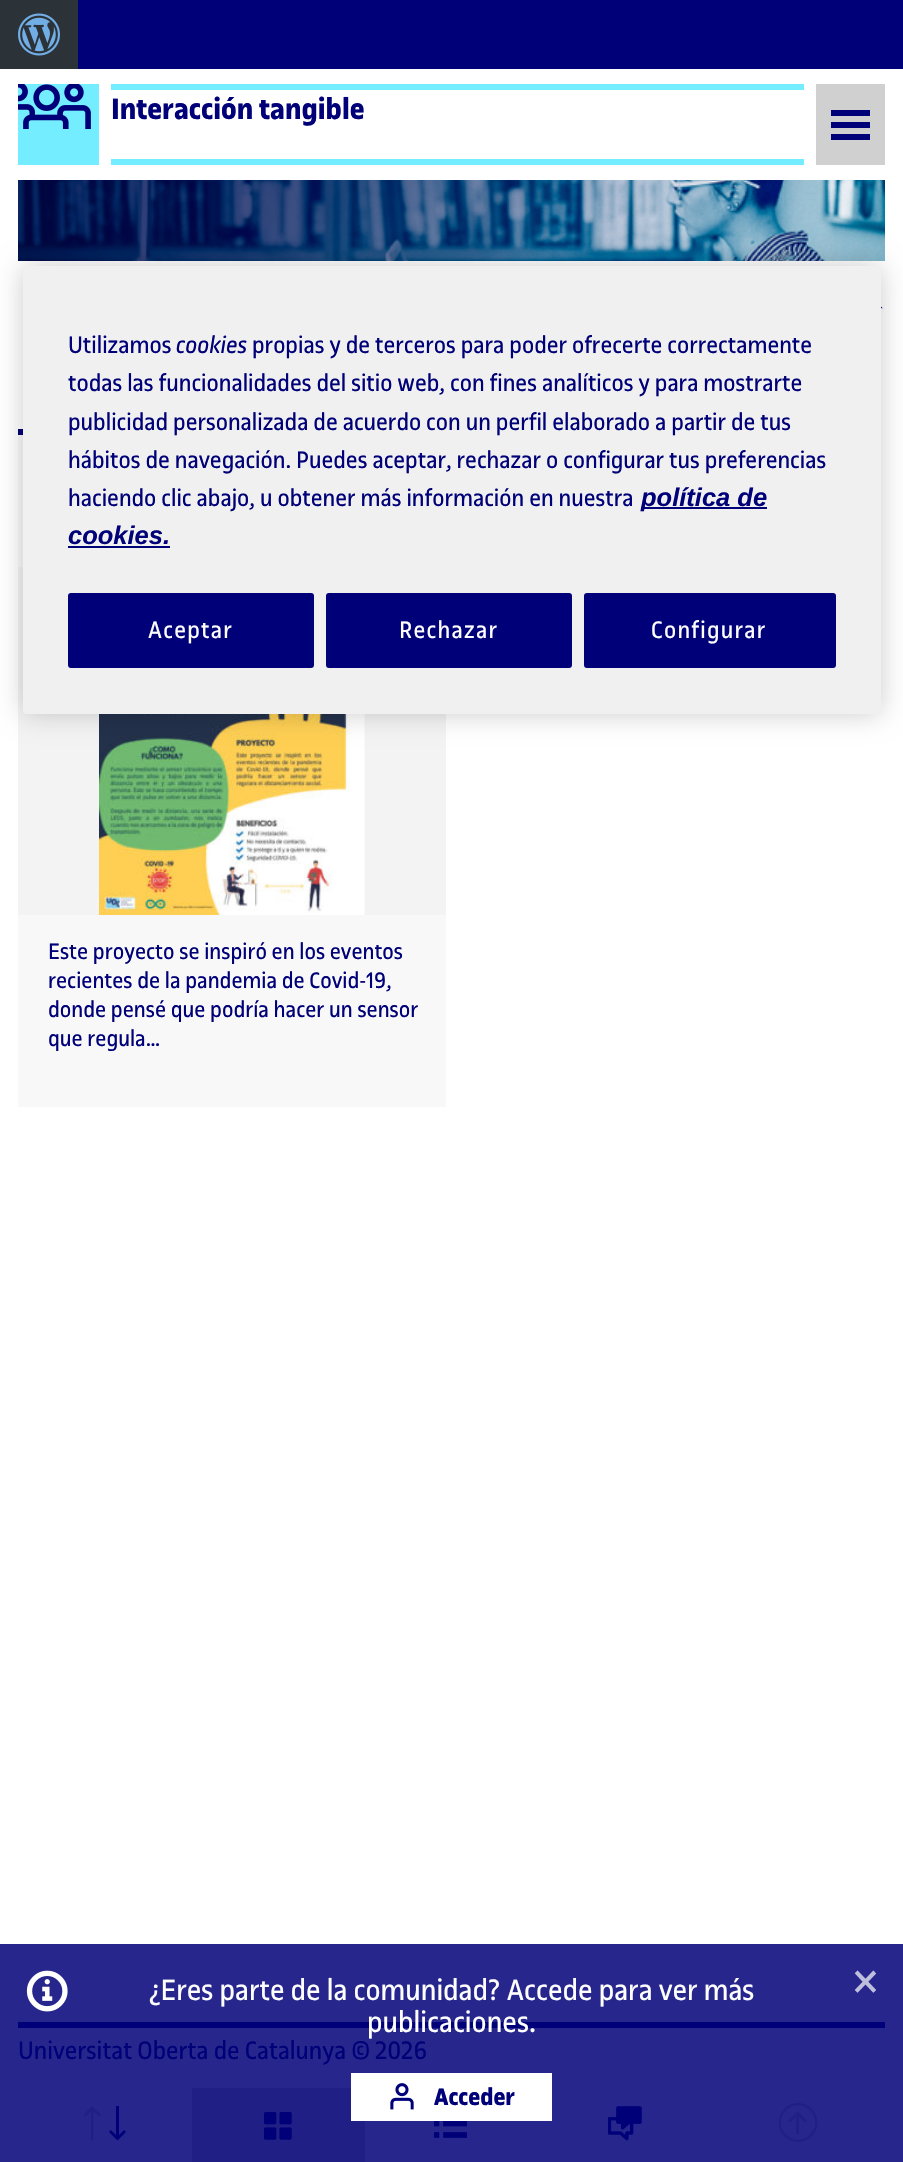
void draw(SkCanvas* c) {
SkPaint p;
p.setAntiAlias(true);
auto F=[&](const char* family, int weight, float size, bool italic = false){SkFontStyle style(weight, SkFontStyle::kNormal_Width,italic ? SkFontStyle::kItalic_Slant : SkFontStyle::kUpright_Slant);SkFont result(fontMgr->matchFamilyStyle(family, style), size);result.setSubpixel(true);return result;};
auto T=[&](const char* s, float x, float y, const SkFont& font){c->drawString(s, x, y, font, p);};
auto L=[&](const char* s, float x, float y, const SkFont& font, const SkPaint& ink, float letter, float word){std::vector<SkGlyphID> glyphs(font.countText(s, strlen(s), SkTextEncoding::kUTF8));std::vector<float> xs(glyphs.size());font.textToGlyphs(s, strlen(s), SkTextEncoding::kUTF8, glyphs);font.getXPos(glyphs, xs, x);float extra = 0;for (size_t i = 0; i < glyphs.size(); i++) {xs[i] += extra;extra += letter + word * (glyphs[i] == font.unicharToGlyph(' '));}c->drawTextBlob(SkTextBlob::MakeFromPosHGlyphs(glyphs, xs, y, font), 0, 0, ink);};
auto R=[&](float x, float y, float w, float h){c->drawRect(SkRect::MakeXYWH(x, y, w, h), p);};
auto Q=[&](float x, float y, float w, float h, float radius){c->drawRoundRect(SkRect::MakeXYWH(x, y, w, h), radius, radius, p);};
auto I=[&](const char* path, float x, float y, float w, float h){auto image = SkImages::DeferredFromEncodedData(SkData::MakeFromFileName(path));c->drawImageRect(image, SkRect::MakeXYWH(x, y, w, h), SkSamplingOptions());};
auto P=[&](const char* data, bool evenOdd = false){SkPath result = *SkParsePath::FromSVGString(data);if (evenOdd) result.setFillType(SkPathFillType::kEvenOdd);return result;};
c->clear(0xffffffff);
p.setColor(0xff26268c);
R(0,1944,903,218);
p.setColor(0xff000078);
R(78,0,825,69);
p.setColor(0xff2c3338);
R(0,0,78,69);
I("1.png",18,13,42,43);
p.setColor(0xff73edff);
R(18,84,81,81);
I("2.png",18,84,73,45);
R(111,84,693,6);
R(111,159,693,6);
auto f1 = F("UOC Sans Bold",700,31.5);
p.setColor(0xff000078);
T("Interacción tangible",111,119,f1);
p.setColor(0xffd0d0d0);
R(816,84,69,81);
p.setColor(0xff000078);
R(831,110,39,6);
R(831,122,39,6);
R(831,134,39,6);
I("3.png",18,180,867,81);
I("4.png",881,306,2,3);
p.setColor(0xfff8f8f8);
R(18,435,428,672);
p.setColor(0xff000078);
R(18,429,5,6);
p.setColor(0xfff3f3f3);
R(18,567,428,348);
I("5.png",99,714,266,201);
auto f2 = F("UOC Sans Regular",400,24);
p.setColor(0xff000078);
T("Este proyecto se inspiró en los eventos",48,959,f2);
T("recientes de la pandemia de Covid-19,",48,988,f2);
T("donde pensé que podría hacer un sensor",48,1017,f2);
T("que regula…",48,1046,f2);
p.setColor(0xff1f1f85);
c->drawPath(P("M92 2106l-8.5 8.5l2 2l5.5-5v29h2.5v-29l5.5 5l2-2z"),p);
p.setColor(0xff000078);
c->drawPath(P("M117.5 2140.5l8.5-8.5l-2-2l-5 5v-29h-3v29l-5-5l-2 2z"),p);
p.setColor(0xff1f1f85);
R(192,2088,173,74);
I("6.png",264,2112,28,28);
I("7.png",434,2121,33,17);
I("8.png",608,2106,34,35);
I("9.png",779,2103,39,39);
I("10.png",26,1970,42,42);
auto f3 = F("UOC Sans Regular",400,31.5);
p.setColor(0xffffffff);
T("¿Eres parte de la comunidad? Accede para ver más",148,2000,f3);
p.setColor(0xff000078);
R(18,2022,867,6);
p.setColor(0xffffffff);
T("publicaciones.",367,2032,f3);
R(351,2073,201,48);
I("11.png",390,2083,24,27);
auto f4 = F("UOC Sans Bold",700,25.5);
p.setColor(0xff000078);
T("Acceder",434,2105,f4);
auto f5 = F("UOC Sans Regular",400,54);
p.setColor(0xffbebedd);
T("×",852,2000,f5);
auto f6 = F("UOC Sans Regular",400,27);
p.setColor(0xff000078);
T("Universitat Oberta de Catalunya © 2026",18,2059,f6);
p.setColor(0x33000000);
p.setMaskFilter(SkMaskFilter::MakeBlur(kNormal_SkBlurStyle, 13.5));
c->drawRoundRect(SkRect::MakeXYWH(23,266,858,448),4,4,p);
p.setMaskFilter(nullptr);
p.setColor(0xfff0f0f0);
Q(23,266,858,448,4);
auto f7 = F("UOC Sans Regular",400,25.5);
p.setColor(0xff000078);
T("Utilizamos",68,353,f7);
auto f8 = F("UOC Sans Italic",400,25.5,true);
T("cookies",176,353,f8);
T("propias y de terceros para poder ofrecerte correctamente",252,353,f7);
T("todas las funcionalidades del sitio web, con fines analíticos y para mostrarte",68,391,f7);
T("publicidad personalizada de acuerdo con un perfil elaborado a partir de tus",68,430,f7);
T("hábitos de navegación. Puedes aceptar, rechazar o configurar tus preferencias",68,468,f7);
T("haciendo clic abajo, u obtener más información en nuestra",68,506,f7);
R(641,507,126,2);
auto f9 = F("Liberation Sans",700,25.5,true);
T("política de",641,506,f9);
T("cookies.",68,544,f9);
R(68,546,102,2);
c->drawRoundRect(SkRect::MakeXYWH(69,594,244,73),2,2,p);
p.setStroke(true);
p.setStrokeWidth(2);
c->drawRoundRect(SkRect::MakeXYWH(69,594,244,73),2,2,p);
p.setStroke(false);
p.setColor(0xffffffff);
L("Aceptar",148,638,f7,p,1.25,0);
p.setColor(0xff000078);
c->drawRoundRect(SkRect::MakeXYWH(327,594,244,73),2,2,p);
p.setStroke(true);
c->drawRoundRect(SkRect::MakeXYWH(327,594,244,73),2,2,p);
p.setStroke(false);
p.setColor(0xffffffff);
L("Rechazar",399,638,f7,p,1.25,0);
p.setColor(0xff000078);
c->drawRoundRect(SkRect::MakeXYWH(585,594,250,73),2,2,p);
p.setStroke(true);
c->drawRoundRect(SkRect::MakeXYWH(585,594,250,73),2,2,p);
p.setStroke(false);
p.setColor(0xffffffff);
L("Configurar",651,638,f7,p,1.25,0);
}
